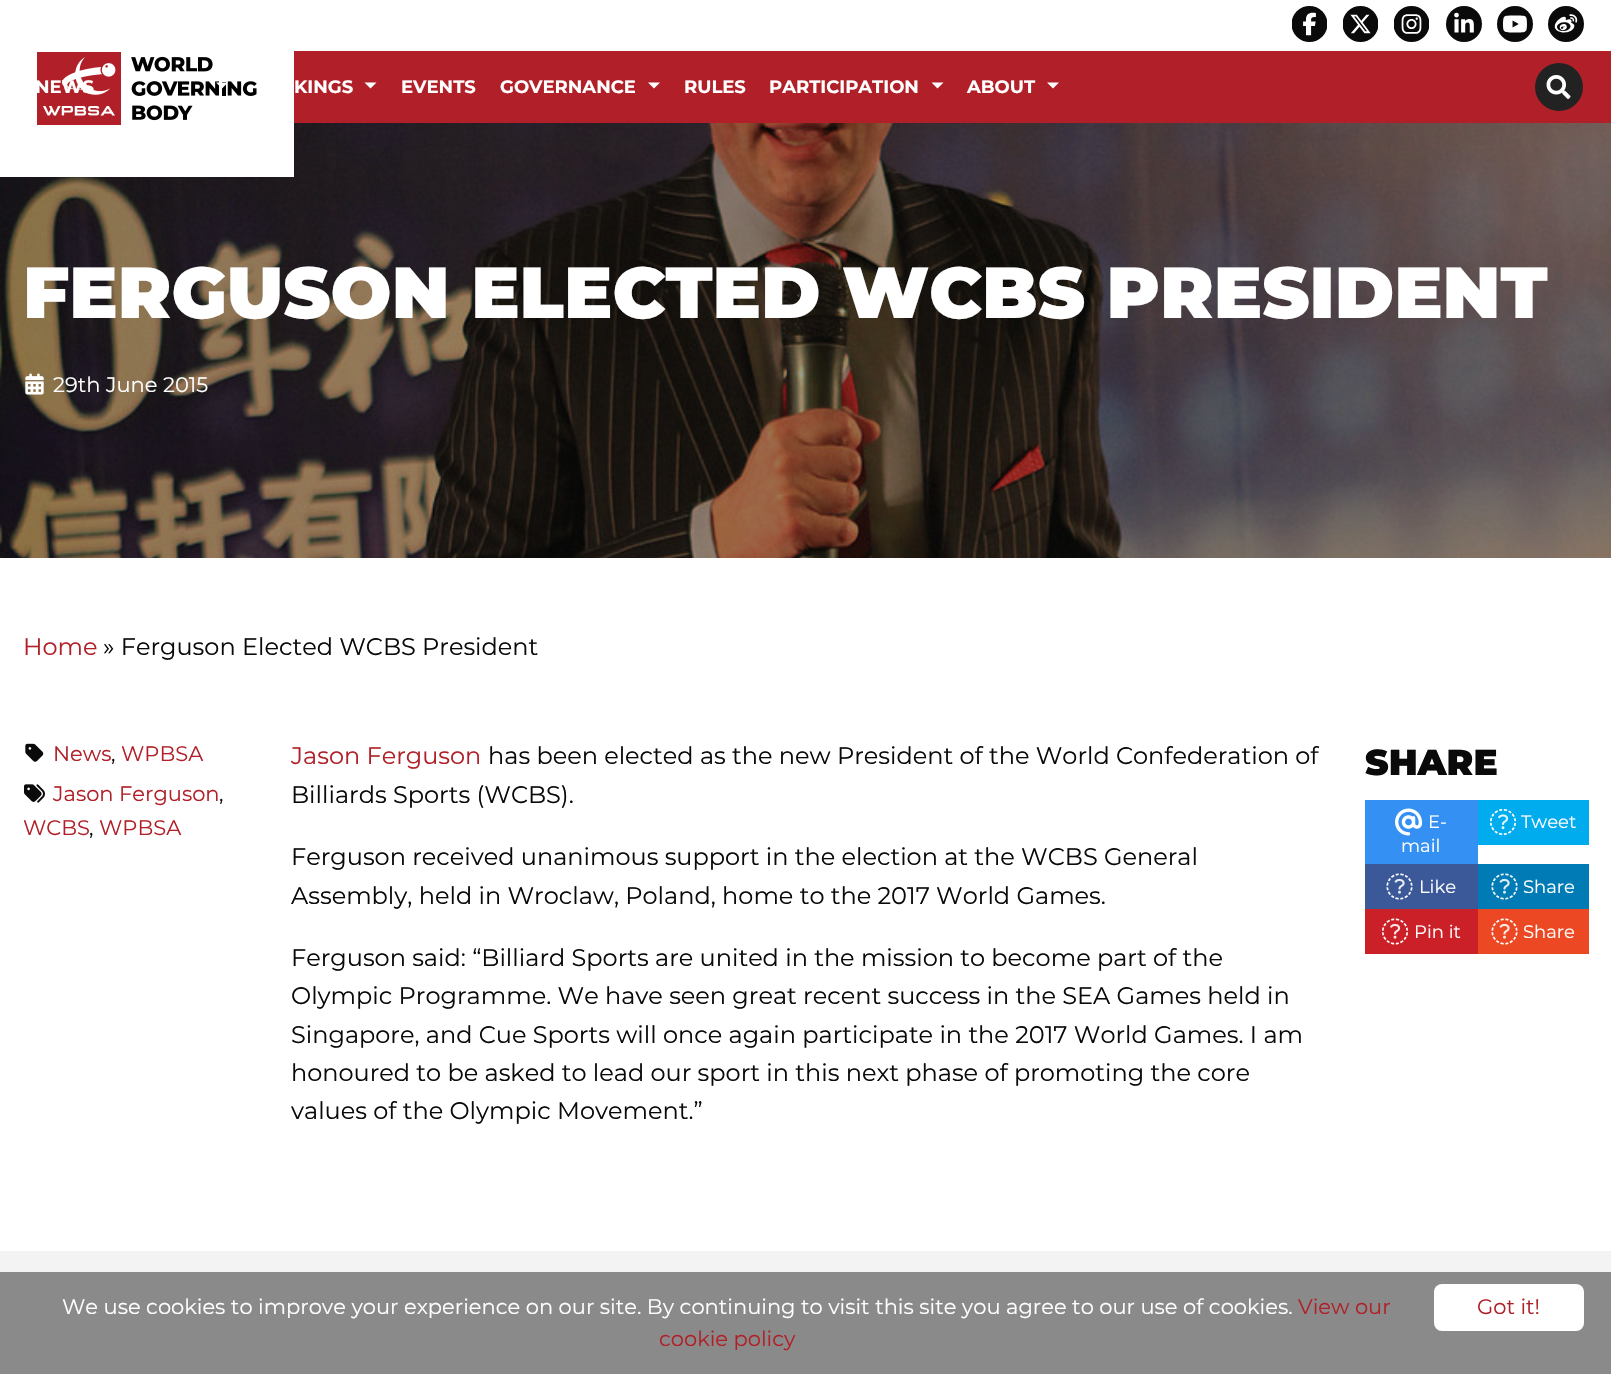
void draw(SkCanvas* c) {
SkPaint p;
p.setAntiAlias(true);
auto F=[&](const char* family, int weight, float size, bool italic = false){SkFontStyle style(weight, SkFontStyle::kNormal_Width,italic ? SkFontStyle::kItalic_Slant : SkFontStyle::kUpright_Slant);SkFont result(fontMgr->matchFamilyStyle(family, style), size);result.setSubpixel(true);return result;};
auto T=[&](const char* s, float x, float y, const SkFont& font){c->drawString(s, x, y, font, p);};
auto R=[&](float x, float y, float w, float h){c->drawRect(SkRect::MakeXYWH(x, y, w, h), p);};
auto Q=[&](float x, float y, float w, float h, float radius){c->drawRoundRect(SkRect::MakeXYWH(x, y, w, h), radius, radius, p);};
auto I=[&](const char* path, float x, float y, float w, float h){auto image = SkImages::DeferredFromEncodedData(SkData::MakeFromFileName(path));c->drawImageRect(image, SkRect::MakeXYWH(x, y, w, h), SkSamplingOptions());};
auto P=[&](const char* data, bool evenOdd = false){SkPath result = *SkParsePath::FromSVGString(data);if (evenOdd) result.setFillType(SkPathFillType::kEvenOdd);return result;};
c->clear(0xffffffff);
I("1.png",1292,6,35,36);
I("2.png",1343,6,35,36);
I("3.png",1394,6,35,36);
I("4.png",1446,6,36,36);
I("5.png",1497,6,36,36);
I("6.png",1548,6,36,36);
I("9.png",0,123,1611,435);
p.setColor(0xffffffff);
R(0,123,294,54);
I("7.png",37,52,220,73);
p.setColor(0xffb12028);
R(294,51,1317,72);
auto f1 = F("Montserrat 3",100,18);
p.setColor(0xffffffff);
T("NEWS",35,93,f1);
c->drawPath(P("M216 82.5h12l-6 6z"),p);
T("KINGS",294,93,f1);
c->drawPath(P("M364.5 82.5h12l-6 6z"),p);
T("EVENTS",401,93,f1);
T("GOVERNANCE",500,93,f1);
c->drawPath(P("M648 82.5h12l-6 6z"),p);
T("RULES",684,93,f1);
T("PARTICIPATION",769,93,f1);
c->drawPath(P("M931.5 82.5h12l-6 6z"),p);
T("ABOUT",967,93,f1);
c->drawPath(P("M1047 82.5h12l-6 6z"),p);
p.setColor(0xff222222);
c->drawCircle(1559,87,24,p);
I("8.png",1546,75,25,24);
auto f2 = F("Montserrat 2",100,72);
p.setColor(0xffffffff);
T("FERGUSON ELECTED WCBS PRESIDENT",23,318,f2);
I("10.png",25,373,19,22);
auto f3 = F("Montserrat",100,21);
T("29th June 2015",53,392,f3);
auto f4 = F("Montserrat",100,24);
p.setColor(0xffb12028);
T("Home",23,655,f4);
p.setColor(0xff0a0a0a);
T("» Ferguson Elected WCBS President",103,655,f4);
I("11.png",25,743,19,19);
p.setColor(0xffb12028);
T("News",53,761,f3);
p.setColor(0xff0a0a0a);
T(",",111,761,f3);
p.setColor(0xffb12028);
T("WPBSA",121,761,f3);
I("12.png",24,784,21,19);
T("Jason Ferguson",53,801,f3);
p.setColor(0xff0a0a0a);
T(",",219,801,f3);
p.setColor(0xffb12028);
T("WCBS",23,835,f3);
p.setColor(0xff0a0a0a);
T(",",89,835,f3);
p.setColor(0xffb12028);
T("WPBSA",99,835,f3);
T("Jason Ferguson",291,764,f4);
p.setColor(0xff0a0a0a);
T("has been elected as the new President of the World Confederation of",488,764,f4);
T("Billiards Sports (WCBS).",291,803,f4);
T("Ferguson received unanimous support in the election at the WCBS General",291,865,f4);
T("Assembly, held in Wroclaw, Poland, home to the 2017 World Games.",291,904,f4);
T("Ferguson said: “Billiard Sports are united in the mission to become part of the",291,966,f4);
T("Olympic Programme. We have seen great recent success in the SEA Games held in",291,1004,f4);
T("Singapore, and Cue Sports will once again participate in the 2017 World Games. I am",291,1043,f4);
T("honoured to be asked to lead our sport in this next phase of promoting the core",291,1081,f4);
T("values of the Olympic Movement.”",291,1119,f4);
auto f5 = F("Montserrat 2",100,36);
T("SHARE",1365,775,f5);
p.setColor(0xff3490f3);
R(1365,800,113,64);
I("13.png",1395,808,27,28);
auto f6 = F("Montserrat",100,18);
p.setColor(0xffffffff);
T("E-",1428,828,f6);
T("mail",1401,852,f6);
p.setColor(0xff00aced);
R(1478,800,111,45);
I("14.png",1490,809,26,26);
p.setColor(0xffffffff);
T("Tweet",1521,828,f6);
p.setColor(0xff3b5998);
R(1365,864,113,45);
I("15.png",1386,873,27,27);
p.setColor(0xffffffff);
T("Like",1419,893,f6);
p.setColor(0xff007bb6);
R(1478,864,111,45);
I("16.png",1491,873,27,27);
p.setColor(0xffffffff);
T("Share",1523,893,f6);
p.setColor(0xffcb2027);
R(1365,909,113,45);
I("17.png",1382,918,26,27);
p.setColor(0xffffffff);
T("Pin it",1414,938,f6);
p.setColor(0xffeb4823);
R(1478,909,111,45);
I("18.png",1491,918,27,27);
p.setColor(0xffffffff);
T("Share",1523,938,f6);
p.setColor(0xfff3f3f3);
R(0,1251,1611,21);
p.setColor(0xff8a8a8a);
R(0,1272,1611,102);
p.setColor(0xffffffff);
T("We use cookies to improve your experience on our site. By continuing to visit this site you agree to our use of cookies.",62,1314,f3);
p.setColor(0xffb12028);
T("View our",1298,1314,f3);
T("cookie policy",659,1346,f3);
p.setColor(0xffffffff);
Q(1434,1284,150,47,8);
p.setColor(0xffb12028);
T("Got it!",1477,1314,f3);
}
